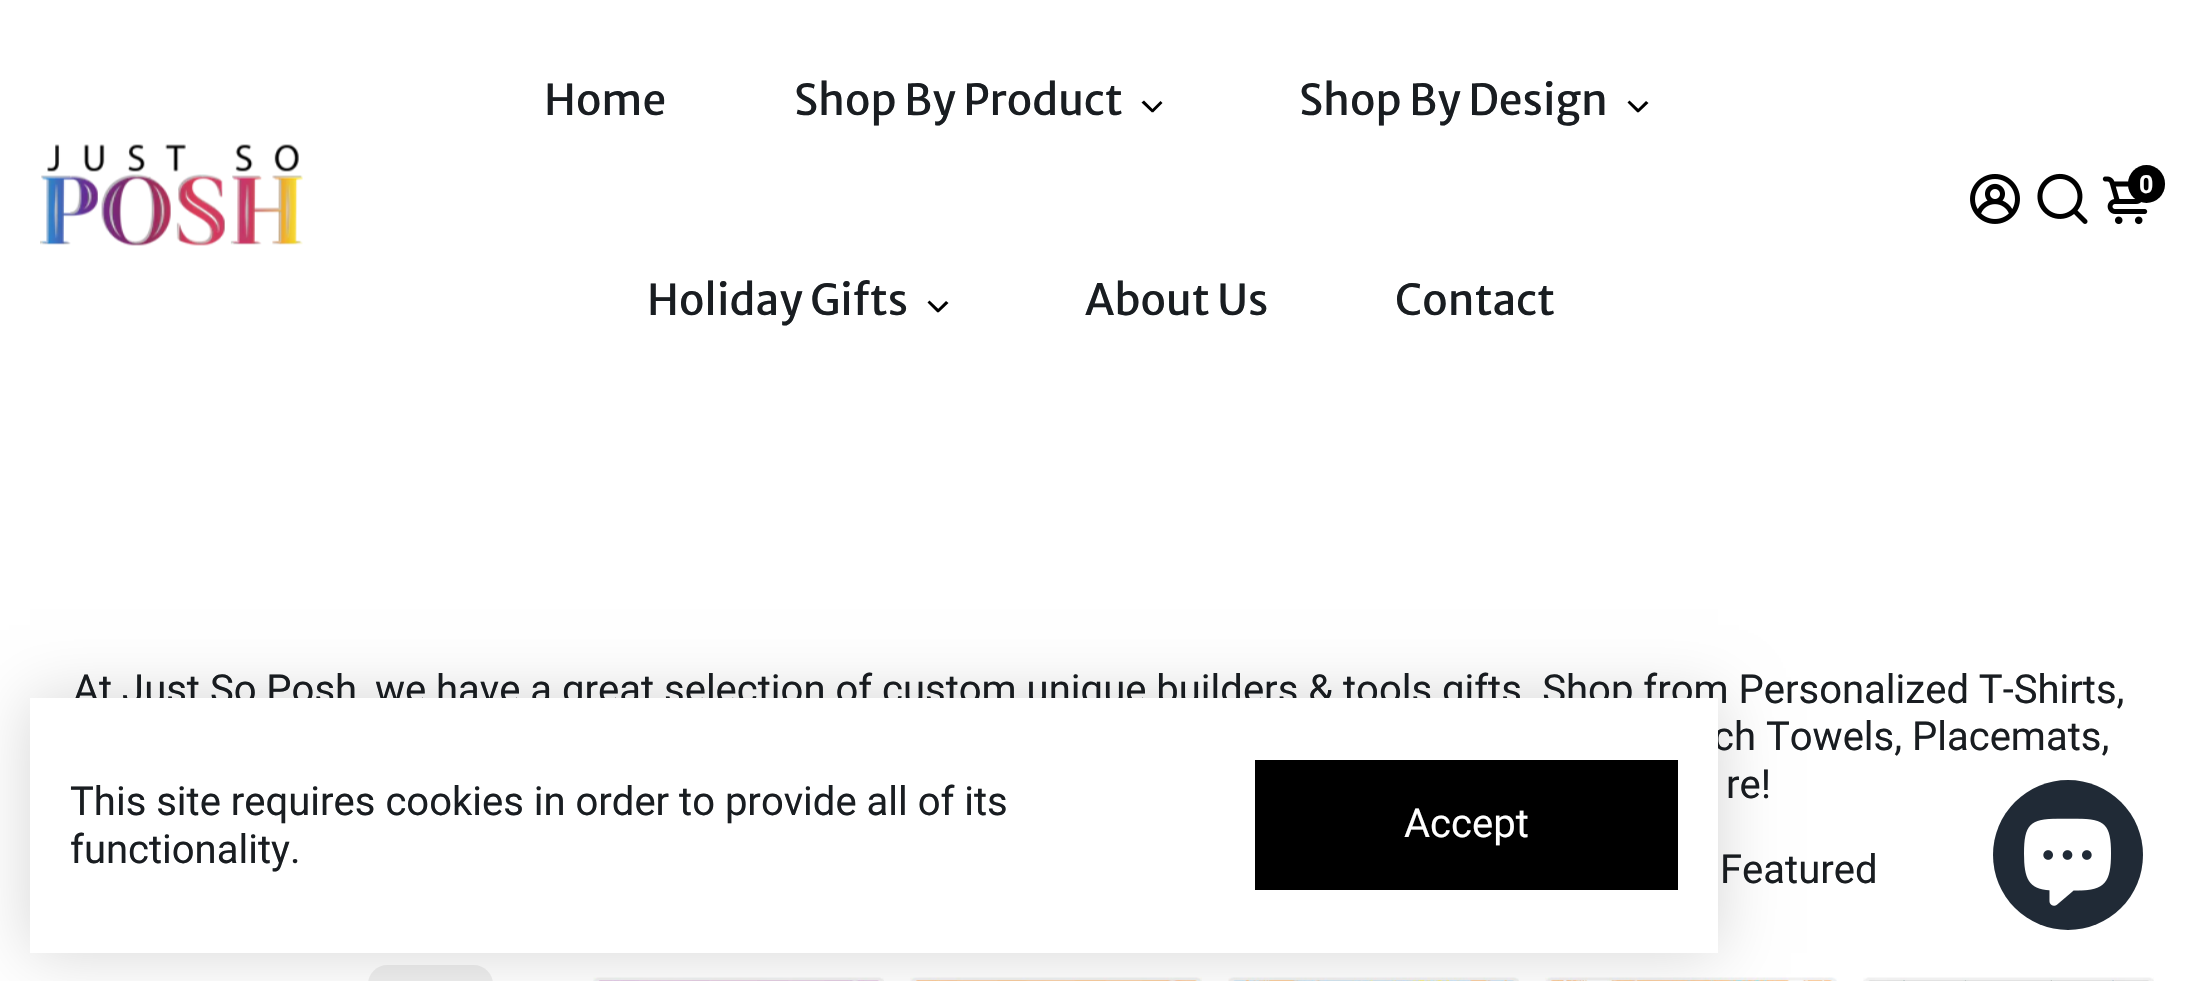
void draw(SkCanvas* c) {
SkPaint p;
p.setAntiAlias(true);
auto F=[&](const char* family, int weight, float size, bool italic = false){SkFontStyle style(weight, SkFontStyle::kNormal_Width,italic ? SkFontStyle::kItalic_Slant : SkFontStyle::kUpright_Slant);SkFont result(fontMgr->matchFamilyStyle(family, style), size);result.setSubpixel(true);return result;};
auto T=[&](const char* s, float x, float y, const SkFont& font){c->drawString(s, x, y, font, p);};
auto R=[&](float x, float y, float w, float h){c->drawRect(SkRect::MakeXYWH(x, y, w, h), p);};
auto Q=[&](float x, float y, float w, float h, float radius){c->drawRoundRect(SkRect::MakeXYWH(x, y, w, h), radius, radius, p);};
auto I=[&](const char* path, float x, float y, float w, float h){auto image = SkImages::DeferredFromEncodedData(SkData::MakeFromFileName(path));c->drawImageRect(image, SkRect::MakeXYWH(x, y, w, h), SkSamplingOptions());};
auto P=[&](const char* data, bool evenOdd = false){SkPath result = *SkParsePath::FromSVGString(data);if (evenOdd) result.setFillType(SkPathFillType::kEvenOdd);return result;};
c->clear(0xffffffff);
I("1.png",40,144,263,102);
auto f1 = F("Merriweather Sans",400,42.5);
p.setColor(0xff191d21);
T("Home",544,115,f1);
T("Shop By Product",794,115,f1);
p.setColor(0xff000000);
c->drawPath(P("M1160.5 101l2 2l-9.5 9.5l-2-2z"),p);
c->drawPath(P("M1144 100.5l10 10l-2 2l-10.5-10z"),p);
p.setColor(0xff191d21);
T("Shop By Design",1299,115,f1);
p.setColor(0xff000000);
c->drawPath(P("M1646 101l2.5 2l-10 9.5l-2-2z"),p);
c->drawPath(P("M1629.5 100.5l10.5 10l-2.5 2l-10-10z"),p);
p.setColor(0xff191d21);
T("Holiday Gifts",647,315,f1);
p.setColor(0xff000000);
c->drawPath(P("M946 301l2.5 2l-10 9.5l-2-2z"),p);
c->drawPath(P("M929.5 300.5l10.5 10l-2.5 2l-10-10z"),p);
p.setColor(0xff191d21);
T("About Us",1085,315,f1);
T("Contact",1395,315,f1);
I("2.png",1970,174,50,50);
I("3.png",2037,173,51,51);
I("4.png",2102,176,46,49);
p.setColor(0xff000000);
Q(2128,165,37,38,18.5);
auto f2 = F("Roboto",700,25);
p.setColor(0xffffffff);
T("0",2139,193,f2);
auto f3 = F("Roboto",400,40);
p.setColor(0xff191d21);
T("At Just So Posh, we have a great selection of custom unique builders & tools gifts. Shop from Personalized T-Shirts,",73,703,f3);
T("ch Towels, Placemats,",1713,750,f3);
T("re!",1726,798,f3);
T("Featured",1720,883,f3);
p.setColor(0xffeeeeee);
Q(368,965,125,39,22.5);
I("5.png",593,977,291,4);
I("6.png",910,977,292,4);
I("7.png",1228,977,291,4);
I("8.png",1545,977,292,4);
I("9.png",1863,977,291,4);
p.setColor(0x29000000);
p.setMaskFilter(SkMaskFilter::MakeBlur(kNormal_SkBlurStyle, 30));
c->drawRect(SkRect::MakeXYWH(30,698,1688,255),p);
p.setMaskFilter(nullptr);
p.setColor(0xffffffff);
R(30,698,1688,255);
p.setColor(0xff191d21);
T("This site requires cookies in order to provide all of its",70,815,f3);
T("functionality.",70,863,f3);
p.setColor(0xff000000);
R(1255,760,423,130);
p.setColor(0xffffffff);
T("Accept",1404,837,f3);
p.setColor(0xff202a36);
c->drawCircle(2068,855,75,p);
I("10.png",2024,818,87,88);
}
